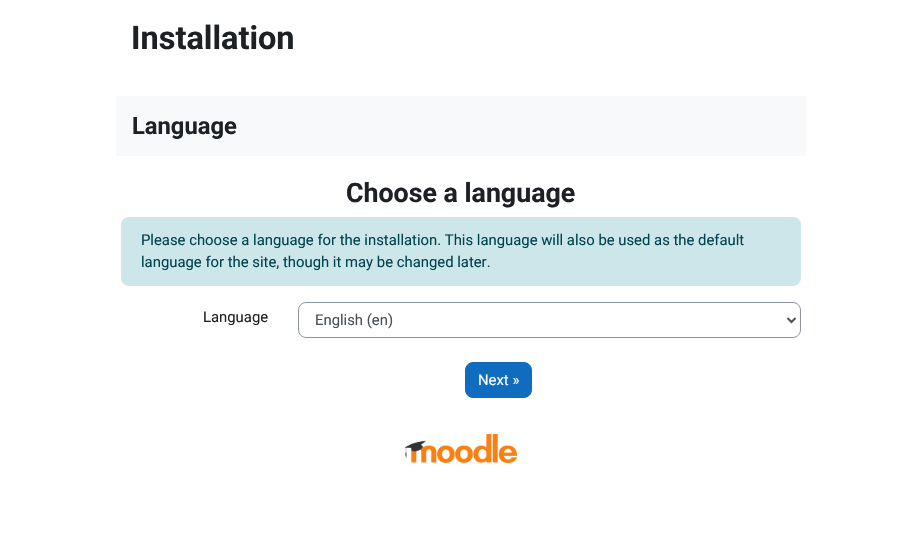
void draw(SkCanvas* c) {
SkPaint p;
p.setAntiAlias(true);
auto F=[&](const char* family, int weight, float size, bool italic = false){SkFontStyle style(weight, SkFontStyle::kNormal_Width,italic ? SkFontStyle::kItalic_Slant : SkFontStyle::kUpright_Slant);SkFont result(fontMgr->matchFamilyStyle(family, style), size);result.setSubpixel(true);return result;};
auto T=[&](const char* s, float x, float y, const SkFont& font){c->drawString(s, x, y, font, p);};
auto R=[&](float x, float y, float w, float h){c->drawRect(SkRect::MakeXYWH(x, y, w, h), p);};
auto Q=[&](float x, float y, float w, float h, float radius){c->drawRoundRect(SkRect::MakeXYWH(x, y, w, h), radius, radius, p);};
auto I=[&](const char* path, float x, float y, float w, float h){auto image = SkImages::DeferredFromEncodedData(SkData::MakeFromFileName(path));c->drawImageRect(image, SkRect::MakeXYWH(x, y, w, h), SkSamplingOptions());};
auto P=[&](const char* data, bool evenOdd = false){SkPath result = *SkParsePath::FromSVGString(data);if (evenOdd) result.setFillType(SkPathFillType::kEvenOdd);return result;};
c->clear(0xffffffff);
auto f1 = F("Roboto",700,32.5);
p.setColor(0xff1d2125);
T("Installation",131,49,f1);
p.setColor(0xfff8f9fa);
R(116,96,690,60);
auto f2 = F("Roboto",700,23.75);
p.setColor(0xff1d2125);
T("Language",132,134,f2);
auto f3 = F("Roboto",700,26.75);
T("Choose a language",346,202,f3);
p.setColor(0xffcce6ea);
Q(121,217,680,69,8);
auto f4 = F("Roboto",400,14.85);
p.setColor(0xff00434e);
T("Please choose a language for the installation. This language will also be used as the default",141,245,f4);
T("language for the site, though it may be changed later.",141,267,f4);
p.setColor(0xff1d2125);
T("Language",203,322,f4);
p.setStroke(true);
p.setStrokeWidth(1);
p.setColor(0xff8f959e);
c->drawRoundRect(SkRect::MakeXYWH(298.5,302.5,502,35),7.5,7.5,p);
p.setStrokeWidth(2);
p.setColor(0xff495057);
c->drawPath(P("M787.5 318l4 4l4-4"),p);
p.setStroke(false);
T("English (en)",315,325,f4);
p.setColor(0xff0f6cbf);
c->drawRoundRect(SkRect::MakeXYWH(465.5,362.5,66,35),7.5,7.5,p);
p.setStroke(true);
p.setStrokeWidth(1);
c->drawRoundRect(SkRect::MakeXYWH(465.5,362.5,66,35),7.5,7.5,p);
p.setStroke(false);
p.setColor(0xffffffff);
T("Next »",478,385,f4);
I("1.png",405,434,112,29);
}
